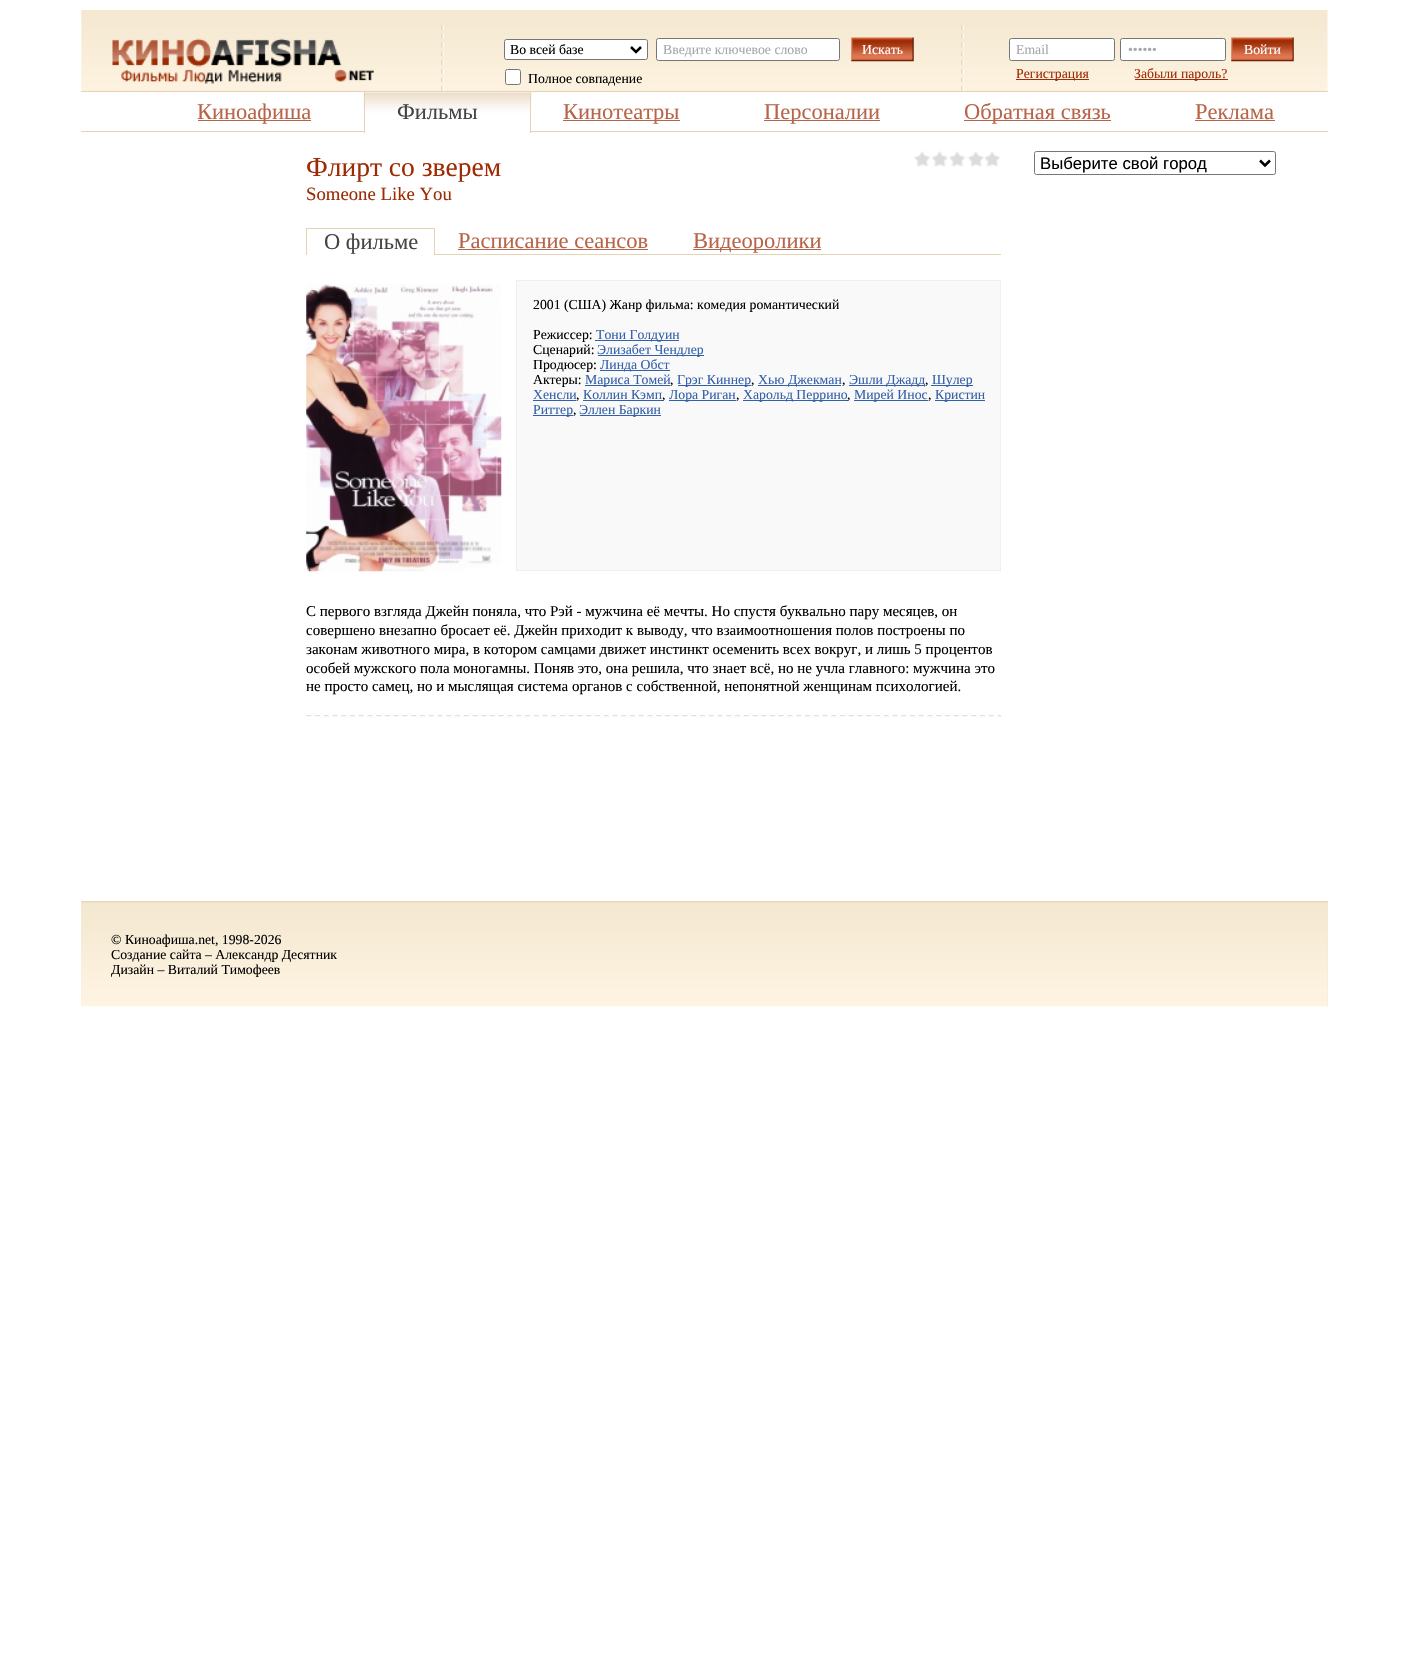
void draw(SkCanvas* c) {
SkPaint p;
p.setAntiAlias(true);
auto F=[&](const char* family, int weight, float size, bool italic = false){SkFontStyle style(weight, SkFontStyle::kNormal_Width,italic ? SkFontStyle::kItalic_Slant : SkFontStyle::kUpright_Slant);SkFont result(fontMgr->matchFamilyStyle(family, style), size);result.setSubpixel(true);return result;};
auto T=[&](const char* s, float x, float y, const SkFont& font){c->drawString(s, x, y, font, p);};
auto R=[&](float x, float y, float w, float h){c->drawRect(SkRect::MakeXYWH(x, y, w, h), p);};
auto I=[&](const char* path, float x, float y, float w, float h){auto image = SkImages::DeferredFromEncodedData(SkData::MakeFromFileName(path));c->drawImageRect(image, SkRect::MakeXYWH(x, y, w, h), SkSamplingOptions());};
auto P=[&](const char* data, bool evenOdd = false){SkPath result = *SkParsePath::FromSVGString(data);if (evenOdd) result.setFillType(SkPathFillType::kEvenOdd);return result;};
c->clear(0xffffffff);
I("1.png",81,10,1247,81);
I("2.png",112,38,262,46);
p.setColor(0xffe4d4b5);
R(81,91,1247,1);
I("3.png",441,25,3,67);
p.setColor(0xffffffff);
c->drawRoundRect(SkRect::MakeXYWH(504.5,39.5,143,20),2,2,p);
p.setStroke(true);
p.setStrokeWidth(1);
p.setColor(0xff767676);
c->drawRoundRect(SkRect::MakeXYWH(504.5,39.5,143,20),2,2,p);
p.setStrokeWidth(2.5);
p.setColor(0xff000000);
c->drawPath(P("M631 47l5 5l5-5"),p);
auto f1 = F("Liberation Serif",400,13.75);
p.setStroke(false);
T("Во всей базе",510,54,f1);
p.setColor(0xffffffff);
c->drawRoundRect(SkRect::MakeXYWH(656.5,38.5,183,22),2,2,p);
p.setStroke(true);
p.setStrokeWidth(1);
p.setColor(0xff767676);
c->drawRoundRect(SkRect::MakeXYWH(656.5,38.5,183,22),2,2,p);
p.setStroke(false);
p.setColor(0xffa7a7a7);
T("Введите ключевое слово",663,54,f1);
I("4.png",851,37,63,25);
p.setColor(0xffffffff);
T("Искать",862,54,f1);
c->drawRoundRect(SkRect::MakeXYWH(505.5,69.5,15,15),2,2,p);
p.setStroke(true);
p.setColor(0xff767676);
c->drawRoundRect(SkRect::MakeXYWH(505.5,69.5,15,15),2,2,p);
p.setStroke(false);
p.setColor(0xff000000);
T("Полное совпадение",528,83,f1);
I("3.png",961,25,3,67);
p.setColor(0xffffffff);
c->drawRoundRect(SkRect::MakeXYWH(1009.5,38.5,105,22),2,2,p);
p.setStroke(true);
p.setColor(0xff767676);
c->drawRoundRect(SkRect::MakeXYWH(1009.5,38.5,105,22),2,2,p);
p.setStroke(false);
p.setColor(0xffa7a7a7);
T("Email",1016,54,f1);
p.setColor(0xffffffff);
c->drawRoundRect(SkRect::MakeXYWH(1120.5,38.5,105,22),2,2,p);
p.setStroke(true);
p.setColor(0xff767676);
c->drawRoundRect(SkRect::MakeXYWH(1120.5,38.5,105,22),2,2,p);
p.setStroke(false);
p.setColor(0xffa7a7a7);
T("••••••",1128,54,f1);
I("5.png",1231,37,63,25);
p.setColor(0xffffffff);
T("Войти",1244,54,f1);
p.setColor(0xff9d2c05);
R(1016,79,73,1);
T("Регистрация",1016,78,f1);
R(1135,79,93,1);
T("Забыли пароль?",1134,78,f1);
p.setColor(0xffe4d4b5);
R(81,131,283,1);
p.setColor(0xffb76448);
R(198,120,113,1);
auto f2 = F("Liberation Serif",400,22.5);
T("Киноафиша",197,119,f2);
I("6.png",363,92,169,40);
p.setColor(0xffe4d4b5);
R(530,91,1,42);
R(364,91,1,42);
p.setColor(0xff444444);
T("Фильмы",397,119,f2);
p.setColor(0xffe4d4b5);
R(531,131,797,1);
p.setColor(0xffb76448);
R(563,120,117,1);
T("Кинотеатры",563,119,f2);
R(764,120,116,1);
T("Персоналии",764,119,f2);
R(964,120,147,1);
T("Обратная связь",964,119,f2);
T("Реклама",1195,119,f2);
R(1195,120,80,1);
auto f3 = F("Liberation Serif",400,27.5);
p.setColor(0xff9d2c05);
T("Флирт со зверем",306,176,f3);
auto f4 = F("Liberation Serif",400,18.75);
T("Someone Like You",306,200,f4);
I("7.png",914,151,86,16);
p.setColor(0xffe4d4b5);
R(306,228,129,1);
R(434,228,1,27);
R(306,228,1,27);
p.setColor(0xff444444);
T("О фильме",324,249,f2);
p.setColor(0xffe4d4b5);
R(435,254,566,1);
p.setColor(0xffb76448);
T("Расписание сеансов",458,248,f2);
R(458,249,190,1);
R(693,249,128,1);
T("Видеоролики",693,248,f2);
I("8.png",306,284,196,288);
p.setColor(0xfff9f9f9);
R(517,281,483,289);
p.setColor(0xffefefef);
R(516,280,485,1);
R(1000,280,1,291);
R(516,280,1,255);
p.setColor(0xff000000);
T("2001 (США) Жанр фильма: комедия романтический",533,309,f1);
T("Режиссер:",533,339,f1);
p.setColor(0xff3360aa);
R(595,340,84,1);
T("Тони Голдуин",596,339,f1);
p.setColor(0xff000000);
T("Сценарий:",533,354,f1);
p.setColor(0xff3360aa);
R(598,355,106,1);
T("Элизабет Чендлер",597,354,f1);
p.setColor(0xff000000);
T("Продюсер:",533,369,f1);
p.setColor(0xff3360aa);
R(600,370,70,1);
T("Линда Обст",600,369,f1);
p.setColor(0xff000000);
T("Актеры:",533,384,f1);
p.setColor(0xff3360aa);
R(585,385,85,1);
T("Мариса Томей",585,384,f1);
p.setColor(0xff000000);
T(",",670,384,f1);
p.setColor(0xff3360aa);
R(678,385,73,1);
T("Грэг Киннер",677,384,f1);
p.setColor(0xff000000);
T(",",751,384,f1);
p.setColor(0xff3360aa);
R(758,385,83,1);
T("Хью Джекман",758,384,f1);
p.setColor(0xff000000);
T(",",842,384,f1);
p.setColor(0xff3360aa);
R(849,385,76,1);
T("Эшли Джадд",849,384,f1);
p.setColor(0xff000000);
T(",",925,384,f1);
p.setColor(0xff3360aa);
R(931,385,42,1);
T("Шулер",932,384,f1);
T("Хенсли",533,399,f1);
R(533,400,43,1);
p.setColor(0xff000000);
T(",",576,399,f1);
p.setColor(0xff3360aa);
T("Коллин Кэмп",583,399,f1);
R(583,400,80,1);
p.setColor(0xff000000);
T(",",662,399,f1);
p.setColor(0xff3360aa);
R(669,400,67,1);
T("Лора Риган",669,399,f1);
p.setColor(0xff000000);
T(",",736,399,f1);
p.setColor(0xff3360aa);
R(743,400,105,1);
T("Харольд Перрино",743,399,f1);
p.setColor(0xff000000);
T(",",847,399,f1);
p.setColor(0xff3360aa);
R(854,400,74,1);
T("Мирей Инос",854,399,f1);
p.setColor(0xff000000);
T(",",928,399,f1);
p.setColor(0xff3360aa);
R(935,400,50,1);
T("Кристин",935,399,f1);
R(533,415,40,1);
T("Риттер",533,414,f1);
p.setColor(0xff000000);
T(",",573,414,f1);
p.setColor(0xff3360aa);
R(580,415,81,1);
T("Эллен Баркин",579,414,f1);
p.setColor(0xffefefef);
R(516,570,485,1);
R(516,535,1,36);
auto f5 = F("Liberation Serif",400,15);
p.setColor(0xff000000);
T("С первого взгляда Джейн поняла, что Рэй - мужчина её мечты. Но спустя буквально пару месяцев, он",306,616,f5);
T("совершено внезапно бросает её. Джейн приходит к выводу, что взаимоотношения полов построены по",306,635,f5);
T("законам животного мира, в котором самцами движет инстинкт осеменить всех вокруг, и лишь 5 процентов",306,654,f5);
T("особей мужского пола моногамны. Поняв это, она решила, что знает всё, но не учла главного: мужчина это",306,673,f5);
T("не просто самец, но и мыслящая система органов с собственной, непонятной женщинам психологией.",306,691,f5);
I("9.png",306,715,696,2);
p.setStroke(true);
p.setColor(0xff767676);
c->drawRoundRect(SkRect::MakeXYWH(1034.5,151.5,241,23),2,2,p);
p.setStrokeWidth(2.5);
p.setColor(0xff000000);
c->drawPath(P("M1260 160.5l5 5l5-5"),p);
auto f6 = F("Liberation Sans",400,16.75);
p.setStroke(false);
T("Выберите свой город",1040,169,f6);
p.setColor(0xfff4e8d1);
R(81,901,1247,105);
I("10.png",81,901,1247,106);
p.setColor(0xff000000);
T("© Киноафиша.net, 1998-2026",111,944,f1);
T("Создание сайта – Александр Десятник",111,959,f1);
T("Дизайн – Виталий Тимофеев",111,974,f1);
}
